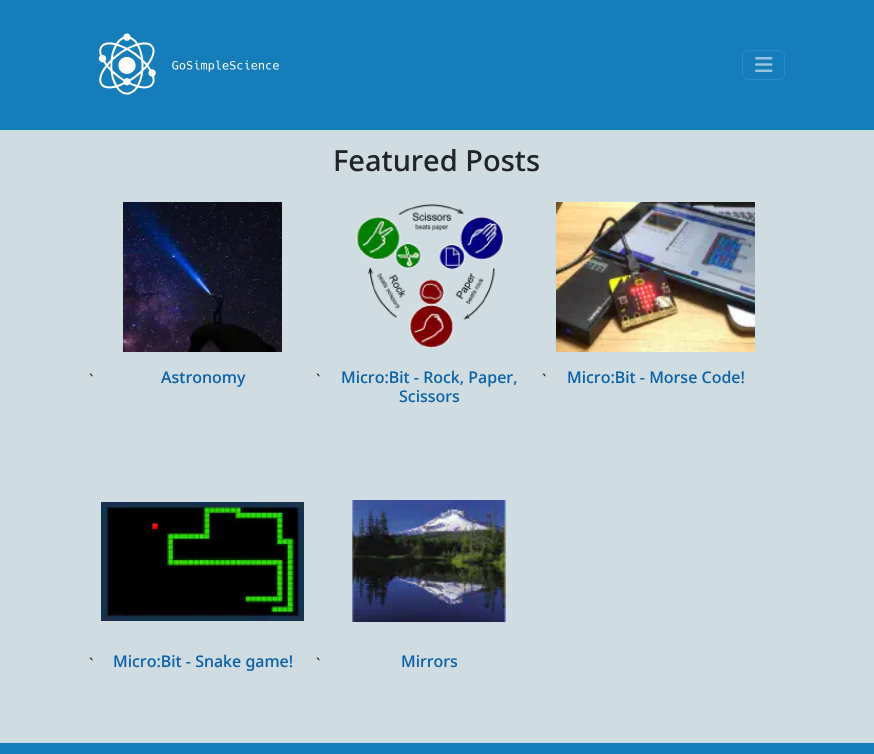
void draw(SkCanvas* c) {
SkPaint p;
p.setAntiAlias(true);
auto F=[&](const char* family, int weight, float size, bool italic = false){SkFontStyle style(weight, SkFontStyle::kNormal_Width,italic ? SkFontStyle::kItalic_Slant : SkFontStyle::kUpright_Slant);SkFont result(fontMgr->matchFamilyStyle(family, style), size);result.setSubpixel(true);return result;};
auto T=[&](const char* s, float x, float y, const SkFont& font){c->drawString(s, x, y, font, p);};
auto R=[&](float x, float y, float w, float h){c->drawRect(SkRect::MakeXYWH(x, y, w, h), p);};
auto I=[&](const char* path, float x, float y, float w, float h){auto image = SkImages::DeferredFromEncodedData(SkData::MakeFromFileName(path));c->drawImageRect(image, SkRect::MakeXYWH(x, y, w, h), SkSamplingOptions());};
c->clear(0xffcfdce1);
p.setColor(0xff157db9);
R(0,0,874,130);
I("1.png",98,33,181,62);
p.setStroke(true);
p.setStrokeWidth(1);
p.setColor(0xff2c8ac0);
c->drawRoundRect(SkRect::MakeXYWH(742.5,50.5,42,29),5.5,5.5,p);
I("2.png",755,57,18,15);
auto f1 = F("Noto Sans",500,29);
p.setStroke(false);
p.setColor(0xff212529);
T("Featured Posts",333,171,f1);
I("3.png",123,202,159,150);
auto f2 = F("Noto Sans",400,16);
T("`",89,386,f2);
auto f3 = F("Noto Sans",500,16);
p.setColor(0xff0c62a8);
T("Astronomy",161,383,f3);
I("4.png",356,204,148,144);
p.setColor(0xff212529);
T("`",316,386,f2);
p.setColor(0xff0c62a8);
T("Micro:Bit - Rock, Paper,",341,383,f3);
T("Scissors",399,402,f3);
I("5.png",556,202,199,150);
p.setColor(0xff212529);
T("`",542,386,f2);
p.setColor(0xff0c62a8);
T("Micro:Bit - Morse Code!",567,383,f3);
I("6.png",101,502,203,119);
p.setColor(0xff212529);
T("`",89,670,f2);
p.setColor(0xff0c62a8);
T("Micro:Bit - Snake game!",113,667,f3);
I("7.png",352,500,154,122);
p.setColor(0xff212529);
T("`",316,670,f2);
p.setColor(0xff0c62a8);
T("Mirrors",401,667,f3);
p.setColor(0xff157db9);
R(0,743,874,11);
}
